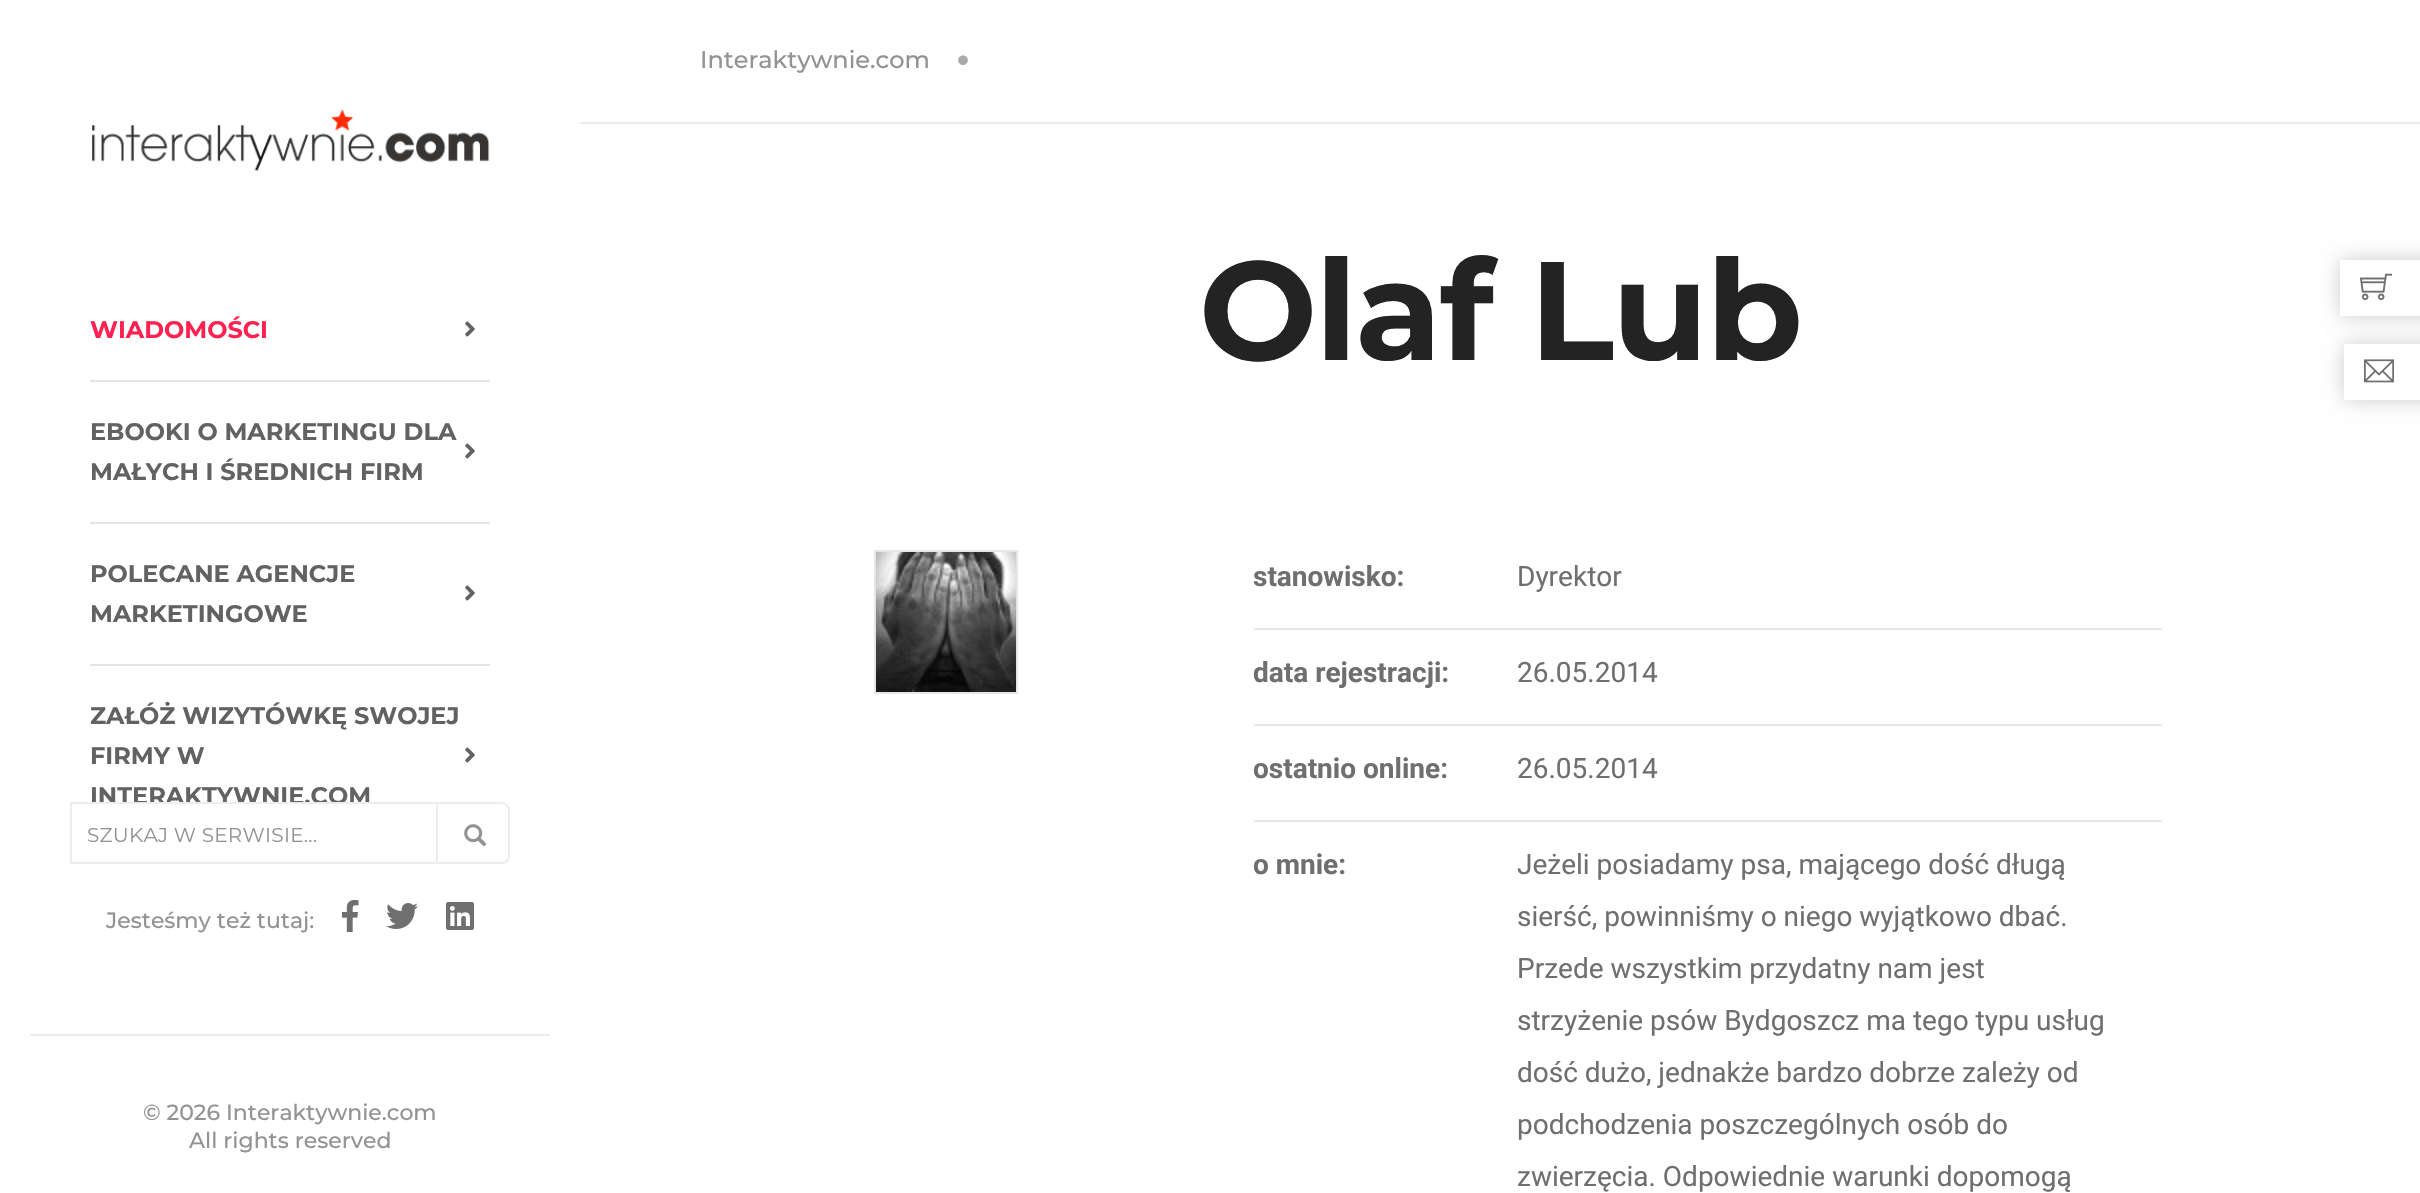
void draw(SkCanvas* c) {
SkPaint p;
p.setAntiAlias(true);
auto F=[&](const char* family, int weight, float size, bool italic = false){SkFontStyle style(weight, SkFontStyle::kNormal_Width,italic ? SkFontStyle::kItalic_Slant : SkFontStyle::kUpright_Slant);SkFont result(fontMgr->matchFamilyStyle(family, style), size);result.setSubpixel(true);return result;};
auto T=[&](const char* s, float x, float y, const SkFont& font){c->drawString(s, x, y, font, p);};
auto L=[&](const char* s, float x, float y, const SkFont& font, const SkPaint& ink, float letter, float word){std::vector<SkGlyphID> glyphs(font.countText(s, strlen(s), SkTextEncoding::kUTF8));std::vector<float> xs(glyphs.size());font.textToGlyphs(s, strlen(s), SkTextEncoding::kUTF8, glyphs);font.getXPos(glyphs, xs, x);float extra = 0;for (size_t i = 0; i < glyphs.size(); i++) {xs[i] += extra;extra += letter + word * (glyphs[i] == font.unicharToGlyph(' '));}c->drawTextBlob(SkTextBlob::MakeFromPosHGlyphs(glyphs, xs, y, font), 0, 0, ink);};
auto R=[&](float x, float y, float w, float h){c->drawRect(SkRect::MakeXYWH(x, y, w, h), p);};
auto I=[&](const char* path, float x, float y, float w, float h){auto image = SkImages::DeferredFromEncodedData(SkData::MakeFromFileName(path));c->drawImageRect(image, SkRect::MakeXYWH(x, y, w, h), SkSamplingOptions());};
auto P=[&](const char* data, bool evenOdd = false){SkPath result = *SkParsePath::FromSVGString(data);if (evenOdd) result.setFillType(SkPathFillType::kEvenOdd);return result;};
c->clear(0xffffffff);
p.setColor(0xffededed);
R(580,122,1840,2);
auto f1 = F("Montserrat",500,24);
p.setColor(0xff939393);
T("Interaktywnie.com",700,68,f1);
I("1.png",958,55,10,10);
auto f2 = F("Montserrat",700,140);
p.setColor(0xff232323);
L("Olaf Lub",1199,360,f2,p,-2,0);
p.setStroke(true);
p.setStrokeWidth(2);
p.setColor(0xffe6e6e6);
c->drawRect(SkRect::MakeXYWH(875,551,142,142),p);
I("2.png",876,552,140,140);
p.setStroke(false);
R(1254,628,908,2);
auto f3 = F("Roboto",700,28);
p.setColor(0xff6f6f6f);
T("stanowisko:",1253,586,f3);
auto f4 = F("Roboto",400,28);
T("Dyrektor",1517,586,f4);
p.setColor(0xffe6e6e6);
R(1254,724,908,2);
p.setColor(0xff6f6f6f);
T("data rejestracji:",1253,682,f3);
T("26.05.2014",1517,682,f4);
p.setColor(0xffe6e6e6);
R(1254,820,908,2);
p.setColor(0xff6f6f6f);
T("ostatnio online:",1253,778,f3);
T("26.05.2014",1517,778,f4);
T("o mnie:",1253,874,f3);
T("Jeżeli posiadamy psa, mającego dość długą",1517,874,f4);
T("sierść, powinniśmy o niego wyjątkowo dbać.",1517,926,f4);
T("Przede wszystkim przydatny nam jest",1517,978,f4);
T("strzyżenie psów Bydgoszcz ma tego typu usług",1517,1030,f4);
T("dość dużo, jednakże bardzo dobrze zależy od",1517,1082,f4);
T("podchodzenia poszczególnych osób do",1517,1134,f4);
T("zwierzęcia. Odpowiednie warunki dopomogą",1517,1186,f4);
c->save();
c->clipPath(P("M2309 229h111v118h-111zm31 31h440v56h-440z",true),true);
p.setColor(0x33000000);
p.setMaskFilter(SkMaskFilter::MakeBlur(kNormal_SkBlurStyle, 10));
c->drawRect(SkRect::MakeXYWH(2340,260,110,56),p);
p.setMaskFilter(nullptr);
c->restore();
I("3.png",2359,273,33,28);
I("4.png",92,109,398,63);
p.setColor(0xffe5e5e5);
R(90,380,400,2);
auto f5 = F("Montserrat",700,24);
p.setColor(0xffff214f);
T("WIADOMOŚCI",90,338,f5);
I("5.png",465,321,10,16);
p.setColor(0xffe5e5e5);
R(90,522,400,2);
p.setColor(0xff626262);
T("EBOOKI O MARKETINGU DLA",90,440,f5);
I("5.png",465,443,10,16);
T("MAŁYCH I ŚREDNICH FIRM",90,480,f5);
p.setColor(0xffe5e5e5);
R(90,664,400,2);
p.setColor(0xff626262);
T("POLECANE AGENCJE",90,582,f5);
I("5.png",465,585,10,16);
T("MARKETINGOWE",90,622,f5);
T("ZAŁÓŻ WIZYTÓWKĘ SWOJEJ",90,724,f5);
T("FIRMY W",90,764,f5);
I("5.png",465,747,10,16);
T("INTERAKTYWNIE.COM",90,804,f5);
p.setColor(0xffffffff);
R(306,804,35,1);
p.setStroke(true);
p.setColor(0xffededed);
c->drawRect(SkRect::MakeXYWH(71,803,366,60),p);
auto f6 = F("Montserrat",400,20);
p.setStroke(false);
p.setColor(0xff939393);
L("SZUKAJ W SERWISIE...",87,842,f6,p,.25,0);
p.setColor(0xffffffff);
c->drawPath(P("M437 803h65c4 0 7 3 7 7v46c0 4-3 7-7 7h-65z"),p);
p.setStroke(true);
p.setColor(0xffededed);
c->drawPath(P("M437 803h65c4 0 7 3 7 7v46c0 4-3 7-7 7h-65z"),p);
I("6.png",464,824,23,23);
auto f7 = F("Montserrat",500,22);
p.setStroke(false);
p.setColor(0xff939393);
T("Jesteśmy też tutaj:",106,928,f7);
I("7.png",342,900,17,32);
I("8.png",386,903,32,26);
I("9.png",446,902,28,28);
p.setColor(0xffededed);
R(30,1034,520,2);
p.setColor(0xff939393);
T("© 2026 Interaktywnie.com",143,1120,f7);
T("All rights reserved",189,1148,f7);
c->save();
c->clipPath(P("M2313 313h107v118h-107zm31 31h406v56h-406z",true),true);
p.setColor(0x33000000);
p.setMaskFilter(SkMaskFilter::MakeBlur(kNormal_SkBlurStyle, 10));
c->drawRect(SkRect::MakeXYWH(2344,344,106,56),p);
p.setMaskFilter(nullptr);
c->restore();
I("10.png",2364,359,30,24);
}
